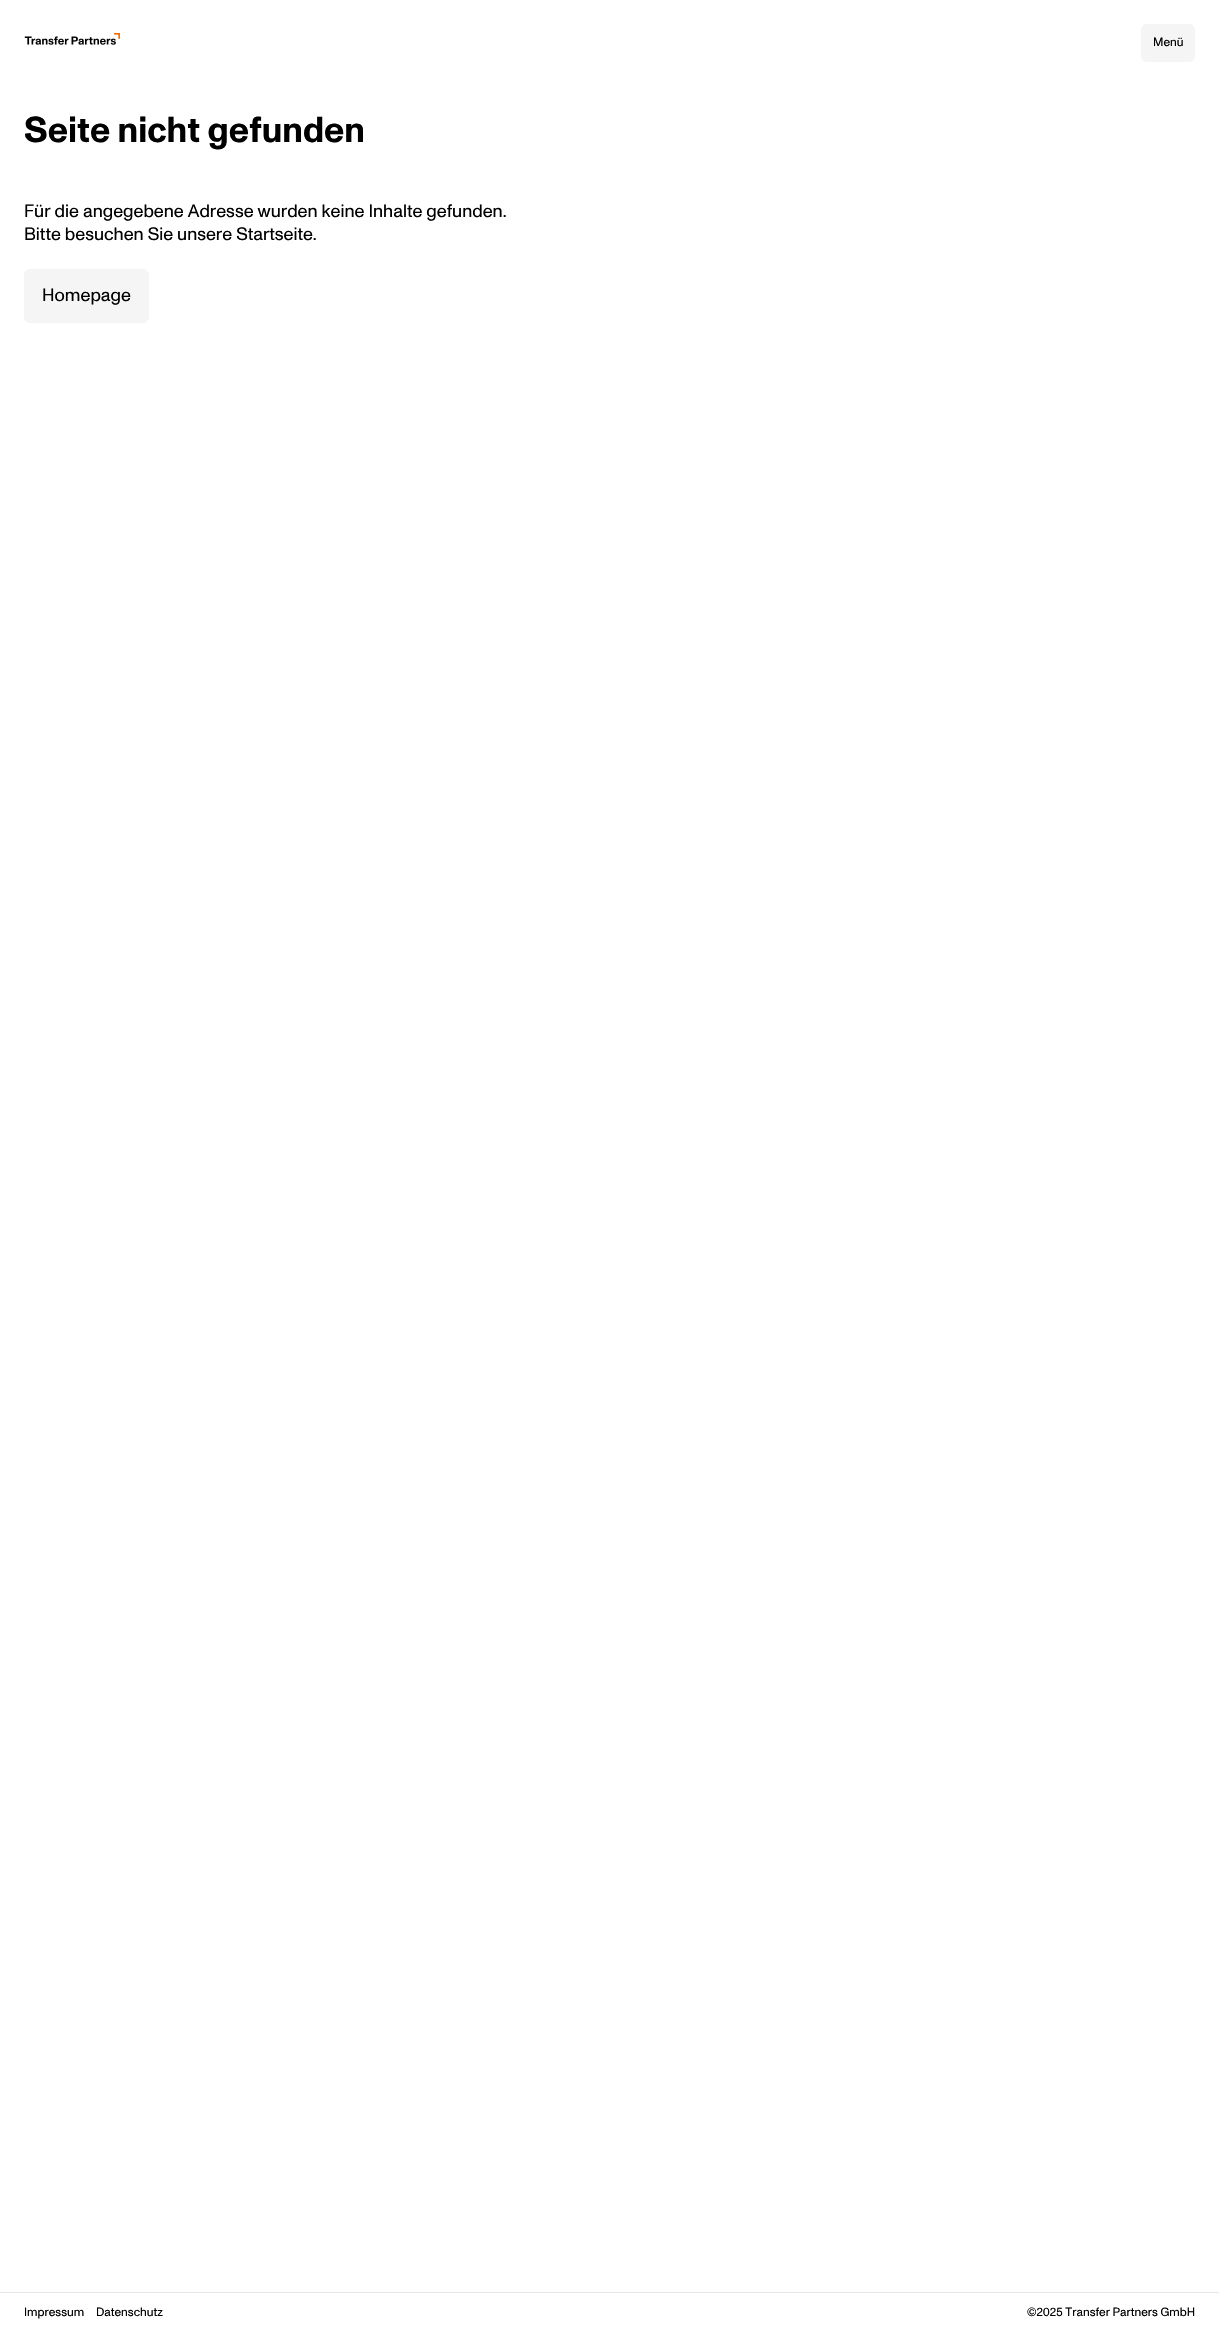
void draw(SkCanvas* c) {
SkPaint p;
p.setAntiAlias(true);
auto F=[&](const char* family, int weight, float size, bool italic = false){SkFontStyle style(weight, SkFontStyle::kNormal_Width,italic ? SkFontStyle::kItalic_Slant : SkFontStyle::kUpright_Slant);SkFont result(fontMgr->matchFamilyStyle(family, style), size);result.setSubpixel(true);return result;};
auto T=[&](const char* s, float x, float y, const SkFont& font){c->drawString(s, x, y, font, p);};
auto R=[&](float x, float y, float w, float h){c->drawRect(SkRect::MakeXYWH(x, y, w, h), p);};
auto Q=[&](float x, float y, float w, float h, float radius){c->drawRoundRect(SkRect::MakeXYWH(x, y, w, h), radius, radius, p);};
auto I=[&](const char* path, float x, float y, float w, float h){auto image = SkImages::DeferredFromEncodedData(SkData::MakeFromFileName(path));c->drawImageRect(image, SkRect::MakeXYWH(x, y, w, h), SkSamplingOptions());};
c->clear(0xffffffff);
I("1.png",24,33,96,12);
p.setColor(0xfff5f5f5);
Q(1141,24,54,38,6);
auto f1 = F("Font",400,12);
p.setColor(0xff000000);
T("Menü",1153,46,f1);
auto f2 = F("Font",700,36);
T("Seite nicht gefunden",24,142,f2);
auto f3 = F("Font",400,18);
T("Für die angegebene Adresse wurden keine Inhalte gefunden.",24,217,f3);
T("Bitte besuchen Sie unsere Startseite.",24,240,f3);
p.setColor(0xfff5f5f5);
Q(24,269,125,54,6);
p.setColor(0xff000000);
T("Homepage",42,301,f3);
p.setColor(0xffe6e6e6);
R(0,2292,1219,1);
p.setColor(0xff000000);
T("Impressum",24,2316,f1);
T("Datenschutz",96,2316,f1);
T("©2025 Transfer Partners GmbH",1027,2316,f1);
}
